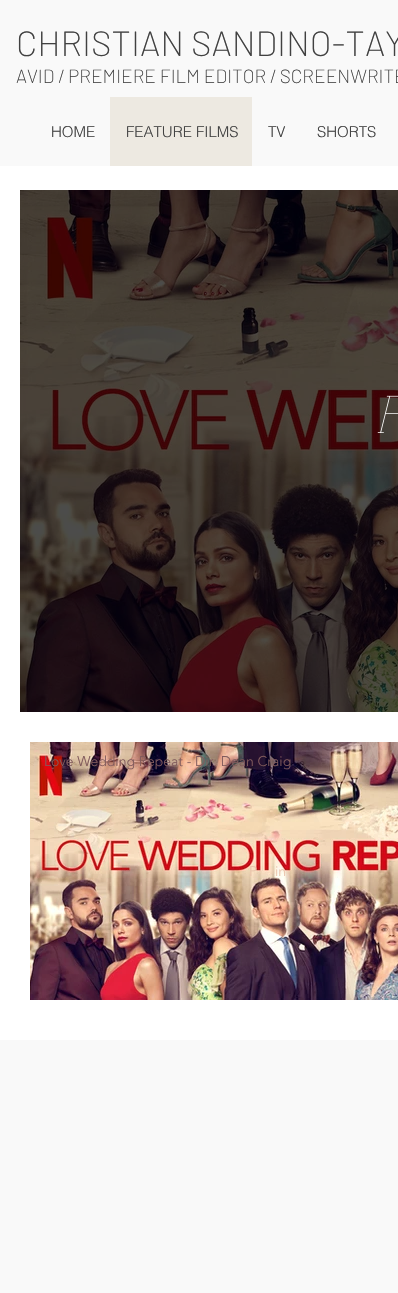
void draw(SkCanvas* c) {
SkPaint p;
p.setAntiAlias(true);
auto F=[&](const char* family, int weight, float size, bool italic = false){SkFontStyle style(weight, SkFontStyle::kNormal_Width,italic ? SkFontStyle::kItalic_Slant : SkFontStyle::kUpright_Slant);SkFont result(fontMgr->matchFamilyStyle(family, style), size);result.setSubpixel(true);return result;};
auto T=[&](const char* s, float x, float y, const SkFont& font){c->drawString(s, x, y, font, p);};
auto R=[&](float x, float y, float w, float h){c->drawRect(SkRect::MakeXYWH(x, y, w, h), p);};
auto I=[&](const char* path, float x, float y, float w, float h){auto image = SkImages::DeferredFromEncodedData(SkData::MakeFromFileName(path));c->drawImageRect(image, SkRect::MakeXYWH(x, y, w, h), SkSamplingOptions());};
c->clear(0xfff9f9f9);
auto f1 = F("Barlow",200,35);
p.setColor(0xff414141);
T("CHRISTIAN SANDINO-TAY",16,56,f1);
auto f2 = F("Barlow",200,19);
T("AVID / PREMIERE FILM EDITOR / SCREENWRITE",16,83,f2);
auto f3 = F("helvetica",300,15);
T("HOME",51,137,f3);
p.setColor(0xffede9e1);
R(110,97,142,69);
p.setColor(0xff414141);
T("FEATURE FILMS",126,137,f3);
T("TV",268,137,f3);
T("SHORTS",317,137,f3);
p.setColor(0xffffffff);
R(0,166,398,874);
I("1.png",20,190,378,522);
I("2.png",377,395,21,38);
I("3.png",30,742,368,258);
auto f4 = F("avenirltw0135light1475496",300,14);
p.setColor(0xff815b5c);
T("Love Wedding Repeat - Dir: Dean Craig",44,766,f4);
p.setColor(0xffeac3ab);
T("P",249,876,f4);
T("in",275,876,f4);
}
